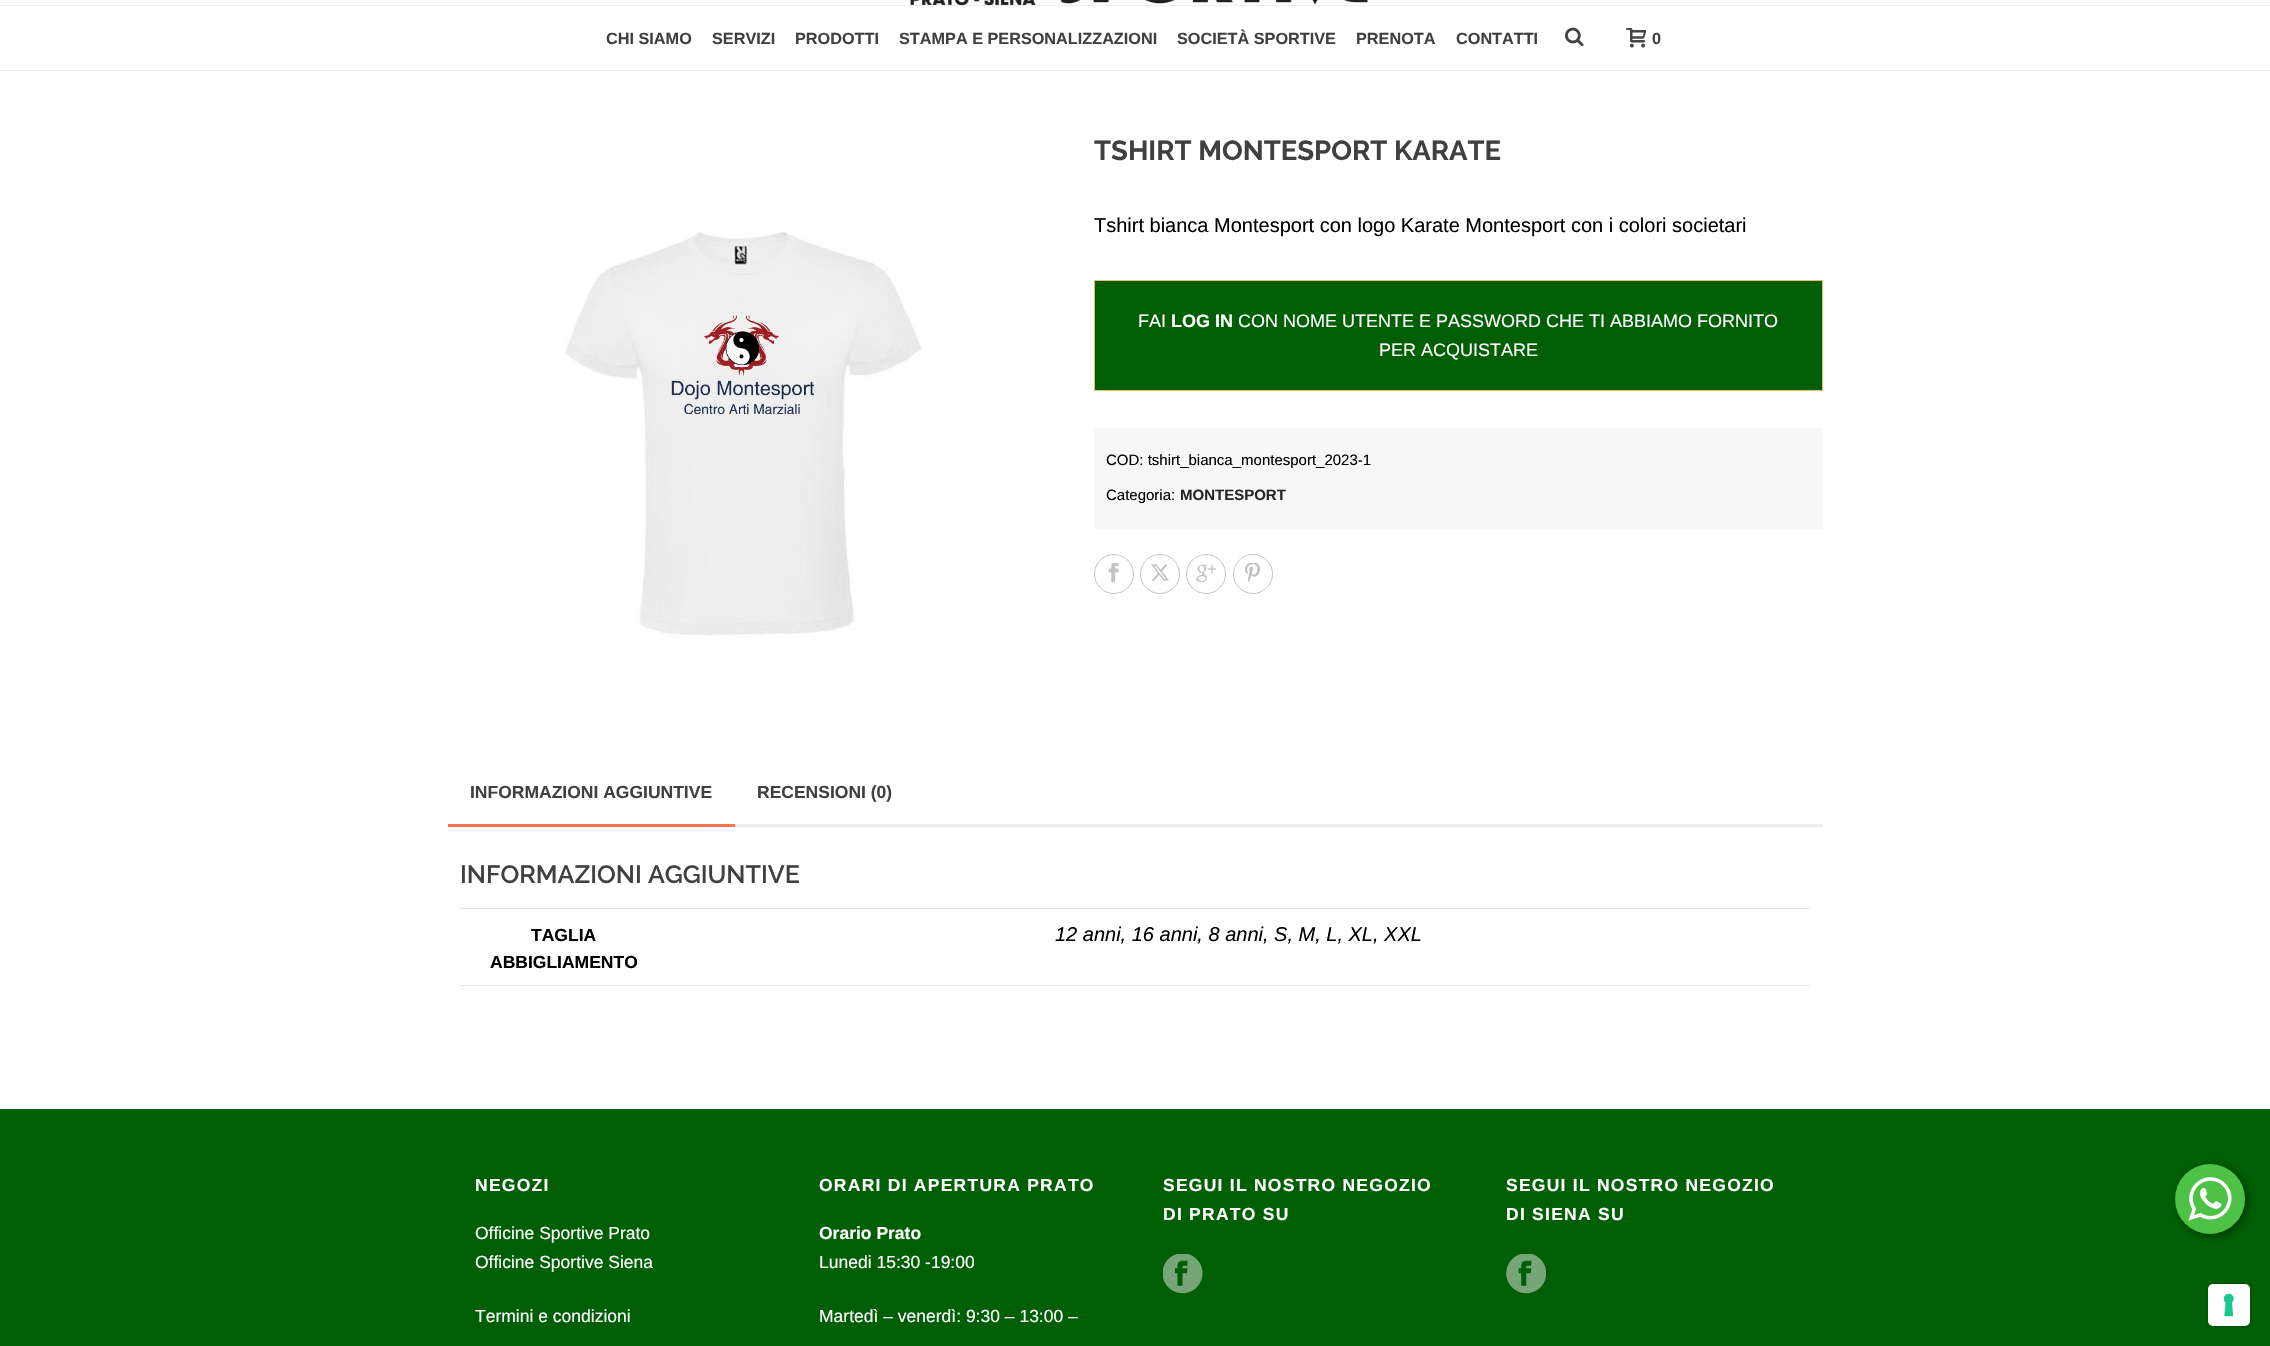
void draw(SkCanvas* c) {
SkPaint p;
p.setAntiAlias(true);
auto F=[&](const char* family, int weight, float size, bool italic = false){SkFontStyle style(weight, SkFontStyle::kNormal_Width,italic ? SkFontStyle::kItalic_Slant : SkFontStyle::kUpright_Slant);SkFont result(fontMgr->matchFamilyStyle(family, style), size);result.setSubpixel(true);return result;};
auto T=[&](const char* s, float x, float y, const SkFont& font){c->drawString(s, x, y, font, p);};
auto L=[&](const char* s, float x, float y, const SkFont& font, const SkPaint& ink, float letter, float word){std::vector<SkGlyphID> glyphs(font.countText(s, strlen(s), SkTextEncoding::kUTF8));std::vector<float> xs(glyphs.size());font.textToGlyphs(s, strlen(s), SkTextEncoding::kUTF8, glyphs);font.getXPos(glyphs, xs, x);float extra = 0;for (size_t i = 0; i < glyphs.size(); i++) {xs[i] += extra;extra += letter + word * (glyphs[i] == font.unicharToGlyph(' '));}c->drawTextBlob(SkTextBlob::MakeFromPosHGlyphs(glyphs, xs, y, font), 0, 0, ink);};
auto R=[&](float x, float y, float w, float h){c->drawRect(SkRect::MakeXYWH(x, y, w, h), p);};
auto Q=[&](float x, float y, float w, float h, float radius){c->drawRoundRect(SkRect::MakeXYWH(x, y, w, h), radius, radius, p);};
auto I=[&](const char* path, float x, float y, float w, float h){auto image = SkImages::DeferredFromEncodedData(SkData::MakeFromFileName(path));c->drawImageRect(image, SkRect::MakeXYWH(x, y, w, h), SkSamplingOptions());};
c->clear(0xffffffff);
p.setColor(0xffe6e6e6);
R(460,985,1350,1);
p.setColor(0xffededed);
R(0,70,2270,1);
I("1.png",910,0,458,5);
R(0,5,2270,1);
auto f1 = F("Liberation Sans",700,16.25);
p.setColor(0xff404040);
T("CHI SIAMO",606,44,f1);
T("SERVIZI",712,44,f1);
T("PRODOTTI",795,44,f1);
T("STAMPA E PERSONALIZZAZIONI",899,44,f1);
T("SOCIETÀ SPORTIVE",1177,44,f1);
T("PRENOTA",1356,44,f1);
T("CONTATTI",1456,44,f1);
I("2.png",1565,27,19,19);
I("3.png",1626,28,20,20);
T("0",1652,44,f1);
I("4.png",565,231,357,405);
auto f2 = F("Raleway",700,27.5);
T("TSHIRT MONTESPORT KARATE",1094,160,f2);
auto f3 = F("Liberation Sans",400,20);
p.setColor(0xff000000);
T("Tshirt bianca Montesport con logo Karate Montesport con i colori societari",1094,232,f3);
p.setColor(0xff005e04);
c->drawRect(SkRect::MakeXYWH(1094.5,280.5,728,110),p);
p.setStroke(true);
p.setStrokeWidth(1);
p.setColor(0xffe0c069);
c->drawRect(SkRect::MakeXYWH(1094.5,280.5,728,110),p);
auto f4 = F("Liberation Sans",400,18);
p.setStroke(false);
p.setColor(0xffffffff);
T("FAI",1138,327,f4);
auto f5 = F("Liberation Sans",700,18);
T("LOG IN",1171,327,f5);
T("CON NOME UTENTE E PASSWORD CHE TI ABBIAMO FORNITO",1238,327,f4);
T("PER ACQUISTARE",1379,356,f4);
p.setColor(0xfff7f7f7);
R(1094,428,729,101);
auto f6 = F("Liberation Sans",400,15);
p.setColor(0xff000000);
T("COD: tshirt_bianca_montesport_2023-1",1106,465,f6);
T("Categoria:",1106,500,f6);
auto f7 = F("Liberation Sans",700,15);
p.setColor(0xff252525);
T("MONTESPORT",1180,500,f7);
p.setStroke(true);
p.setColor(0xffc3c3c3);
c->drawCircle(1114,574,19.5,p);
I("5.png",1108,563,11,20);
c->drawCircle(1160,574,19.5,p);
I("6.png",1151,564,18,17);
c->drawCircle(1206,574,19.5,p);
I("7.png",1196,564,20,19);
c->drawCircle(1253,574,19.5,p);
I("8.png",1245,563,15,19);
p.setStroke(false);
p.setColor(0xffeeeeee);
R(735,824,1088,3);
p.setColor(0xfff97352);
R(448,824,287,3);
auto f8 = F("Liberation Sans",700,17.5);
p.setColor(0xff404040);
T("INFORMAZIONI AGGIUNTIVE",470,798,f8);
T("RECENSIONI (0)",757,798,f8);
auto f9 = F("Raleway",600,25);
T("INFORMAZIONI AGGIUNTIVE",460,883,f9);
p.setColor(0xffe6e6e6);
R(460,908,1350,1);
p.setColor(0xff000000);
T("TAGLIA",531,941,f8);
T("ABBIGLIAMENTO",490,968,f8);
p.setColor(0xffcfcfcf);
R(668,985,1,1);
auto f10 = F("Liberation Sans",400,20,true);
p.setColor(0xff000000);
T("12 anni, 16 anni, 8 anni, S, M, L, XL, XXL",1055,941,f10);
p.setColor(0xff005e04);
R(0,1109,2270,237);
p.setColor(0xffffffff);
L("NEGOZI",475,1191,f8,p,1.25,0);
auto f11 = F("Liberation Sans",400,17.5);
T("Officine Sportive Prato",475,1239,f11);
T("Officine Sportive Siena",475,1268,f11);
T("Termini e condizioni",475,1322,f11);
L("ORARI DI APERTURA PRATO",819,1191,f8,p,1.25,0);
T("Orario Prato",819,1239,f8);
T("Lunedi 15:30 -19:00",819,1268,f11);
T("Martedì – venerdì: 9:30 – 13:00 –",819,1322,f11);
L("SEGUI IL NOSTRO NEGOZIO",1163,1191,f8,p,1.25,0);
L("DI PRATO SU",1163,1220,f8,p,1.25,0);
I("9.png",1163,1254,40,40);
L("SEGUI IL NOSTRO NEGOZIO",1506,1191,f8,p,1.25,0);
L("DI SIENA SU",1506,1220,f8,p,1.25,0);
I("10.png",1506,1254,40,40);
p.setColor(0x66000000);
p.setMaskFilter(SkMaskFilter::MakeBlur(kNormal_SkBlurStyle, 4));
c->drawRoundRect(SkRect::MakeXYWH(2178,1166,70,70),35,35,p);
p.setMaskFilter(nullptr);
p.setColor(0xff4dc247);
c->drawCircle(2210,1199,35,p);
I("11.png",2188,1177,44,44);
p.setStroke(true);
p.setColor(0xff005003);
c->drawRoundRect(SkRect::MakeXYWH(2206.5,1283.5,44,44),5.5,5.5,p);
p.setStroke(false);
p.setColor(0xffffffff);
Q(2208,1284,42,42,5);
I("12.png",2223,1293,11,24);
}
